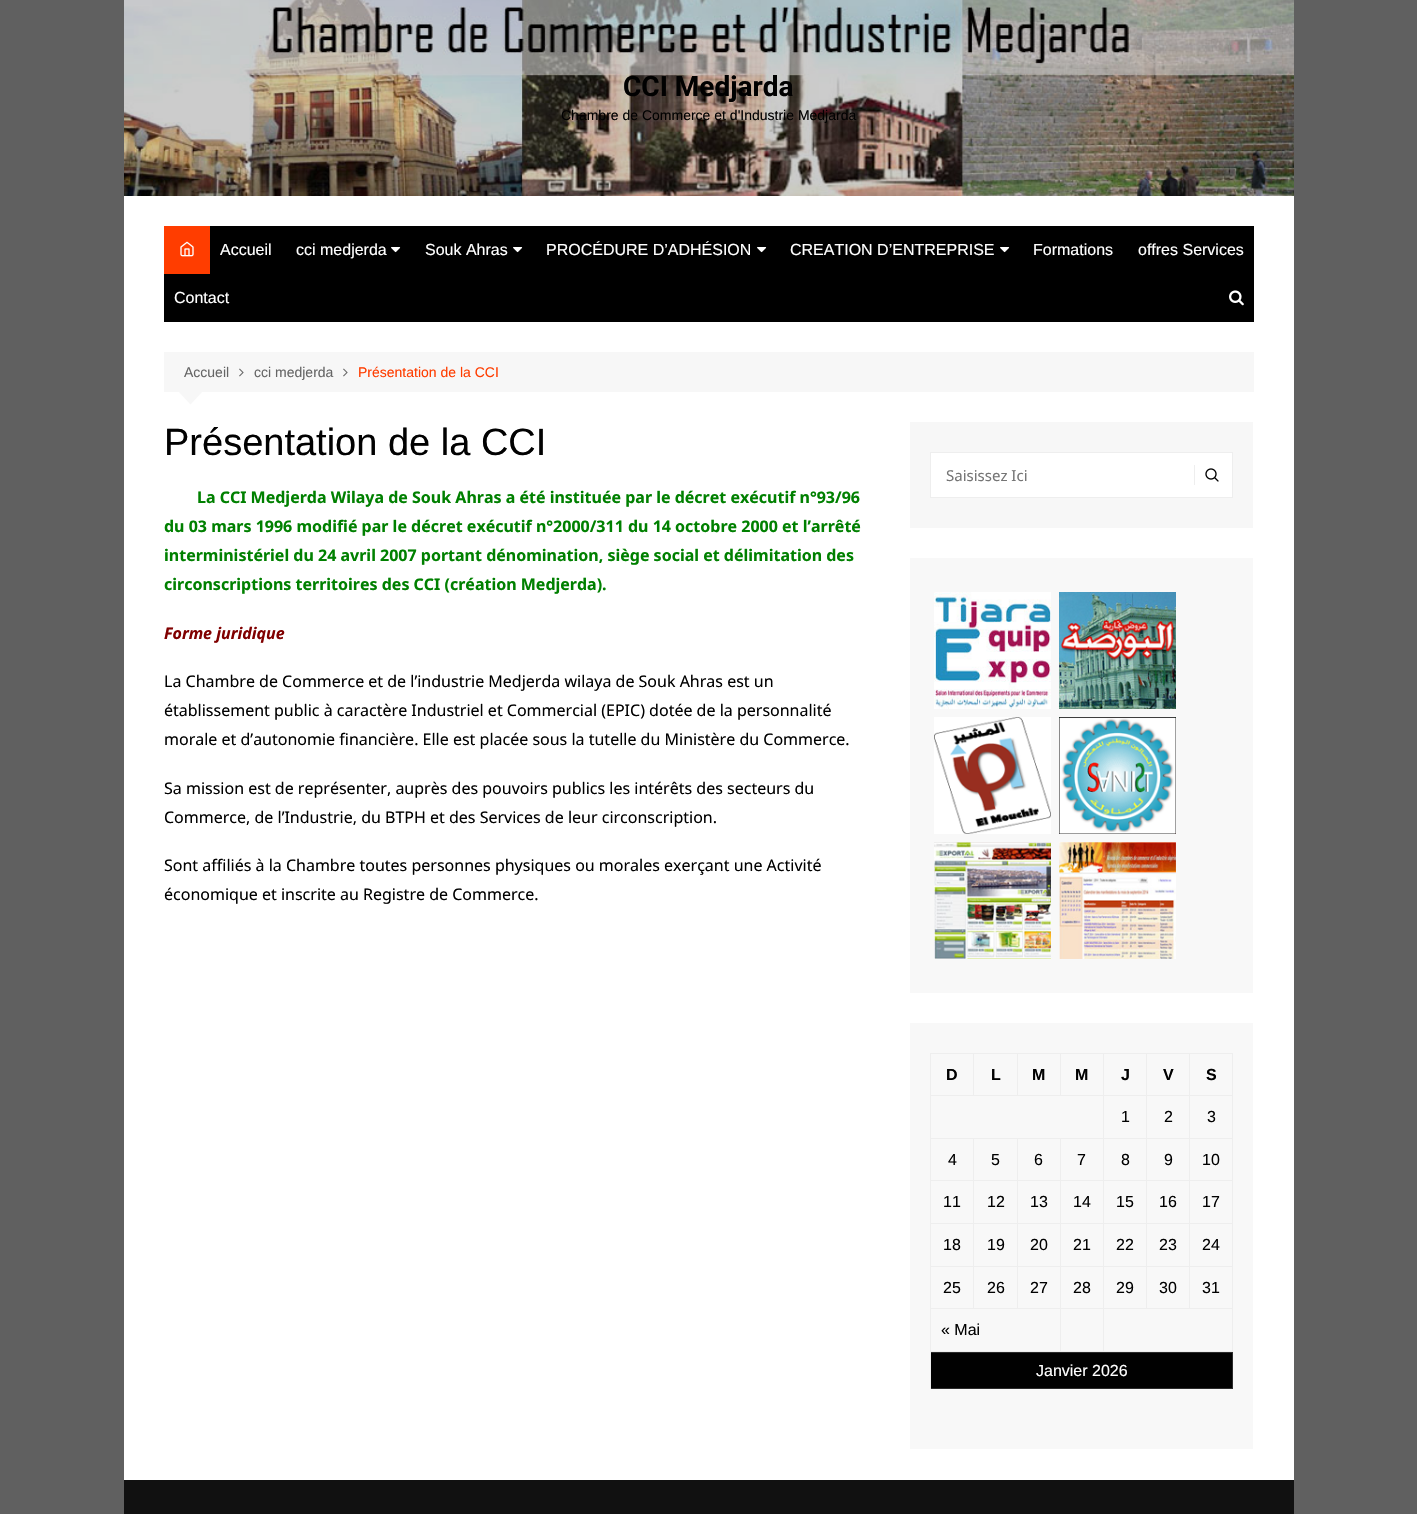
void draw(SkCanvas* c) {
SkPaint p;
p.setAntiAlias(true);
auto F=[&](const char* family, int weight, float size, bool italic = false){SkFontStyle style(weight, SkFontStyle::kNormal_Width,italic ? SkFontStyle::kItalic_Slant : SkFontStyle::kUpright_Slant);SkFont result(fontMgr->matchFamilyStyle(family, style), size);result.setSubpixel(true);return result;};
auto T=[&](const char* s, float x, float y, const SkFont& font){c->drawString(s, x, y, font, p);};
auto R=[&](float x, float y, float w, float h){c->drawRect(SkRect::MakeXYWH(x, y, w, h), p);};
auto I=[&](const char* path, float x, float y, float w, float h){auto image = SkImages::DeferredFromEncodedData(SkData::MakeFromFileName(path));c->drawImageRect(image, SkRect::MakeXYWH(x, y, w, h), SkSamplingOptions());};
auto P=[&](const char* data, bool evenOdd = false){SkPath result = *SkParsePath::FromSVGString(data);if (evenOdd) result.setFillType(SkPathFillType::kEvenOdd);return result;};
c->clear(0xff606060);
p.setColor(0xffffffff);
R(124,196,1170,1284);
I("1.png",124,0,1170,196);
auto f1 = F("Roboto",700,28);
p.setColor(0xff010101);
T("CCI Medjarda",623,96,f1);
auto f2 = F("Liberation Sans",400,14);
T("Chambre de Commerce et d'Industrie Medjarda",561,120,f2);
p.setColor(0xff000000);
R(164,226,1090,96);
p.setColor(0xffff3d00);
R(164,226,46,48);
I("2.png",180,241,14,16);
auto f3 = F("Liberation Sans",400,16);
p.setColor(0xffffffff);
T("Accueil",220,255,f3);
T("cci medjerda",296,255,f3);
I("3.png",391,247,10,6);
T("Souk Ahras",425,255,f3);
I("3.png",513,247,10,6);
T("PROCÉDURE D’ADHÉSION",546,255,f3);
I("3.png",757,247,10,6);
T("CREATION D’ENTREPRISE",790,255,f3);
I("3.png",1000,247,10,6);
T("Formations",1033,255,f3);
T("offres Services",1138,255,f3);
T("Contact",174,303,f3);
I("4.png",1229,290,15,16);
p.setColor(0xfff7f7f7);
R(164,352,1090,40);
p.setColor(0xff666666);
T("Accueil",184,377,f2);
I("5.png",239,368,5,9);
T("cci medjerda",254,377,f2);
I("5.png",343,368,5,9);
p.setColor(0xffff3d00);
T("Présentation de la CCI",358,377,f2);
p.setColor(0xfff7f7f7);
c->drawPath(P("M178.5 391.5h24l-12 13z"),p);
auto f4 = F("Liberation Sans",400,38);
p.setColor(0xff010101);
T("Présentation de la CCI",164,455,f4);
auto f5 = F("Noto Sans",700,16);
p.setColor(0xff008000);
T("La CCI Medjerda Wilaya de Souk Ahras a été instituée par le décret exécutif n°93/96",197,503,f5);
T("du 03 mars 1996 modifié par le décret exécutif n°2000/311 du 14 octobre 2000 et l’arrêté",164,532,f5);
T("interministériel du 24 avril 2007 portant dénomination, siège social et délimitation des",164,561,f5);
T("circonscriptions territoires des CCI (création Medjerda).",164,590,f5);
auto f6 = F("Noto Sans",700,16,true);
p.setColor(0xff800000);
T("Forme juridique",164,639,f6);
auto f7 = F("Noto Sans",400,16);
p.setColor(0xff010101);
T("La Chambre de Commerce et de l’industrie Medjerda wilaya de Souk Ahras est un",164,687,f7);
T("établissement public à caractère Industriel et Commercial (EPIC) dotée de la personnalité",164,716,f7);
T("morale et d’autonomie financière. Elle est placée sous la tutelle du Ministère du Commerce.",164,745,f7);
T("Sa mission est de représenter, auprès des pouvoirs publics les intérêts des secteurs du",164,794,f7);
T("Commerce, de l’Industrie, du BTPH et des Services de leur circonscription.",164,823,f7);
T("Sont affiliés à la Chambre toutes personnes physiques ou morales exerçant une Activité",164,871,f7);
T("économique et inscrite au Registre de Commerce.",164,900,f7);
p.setColor(0xfff7f7f7);
R(910,422,343,106);
p.setColor(0xffffffff);
c->drawRect(SkRect::MakeXYWH(930.5,452.5,302,45),p);
p.setStroke(true);
p.setStrokeWidth(1);
p.setColor(0xffeeeeee);
c->drawRect(SkRect::MakeXYWH(930.5,452.5,302,45),p);
auto f8 = F("Noto Sans",400,15);
p.setStroke(false);
p.setColor(0xff757575);
T("Saisissez Ici",946,481,f8);
p.setColor(0xffeeeeee);
R(1194,465,1,20);
I("6.png",1205,468,14,14);
p.setColor(0xfff8f8f8);
R(910,558,343,435);
I("7.png",934,592,117,117);
I("8.png",1059,592,117,117);
I("9.png",934,717,117,117);
I("10.png",1059,717,117,117);
I("11.png",934,842,117,117);
I("12.png",1059,842,117,117);
R(910,1023,343,426);
p.setColor(0xffeeeeee);
R(930,1053,303,1);
p.setColor(0xff010101);
c->drawRect(SkRect::MakeXYWH(930.5,1352.5,302,36),p);
p.setStroke(true);
p.setColor(0xff2b2b2b);
c->drawRect(SkRect::MakeXYWH(930.5,1352.5,302,36),p);
p.setStroke(false);
p.setColor(0xffeeeeee);
R(930,1053,1,336);
auto f9 = F("Liberation Sans",700,16);
p.setColor(0xff010101);
T("D",946,1080,f9);
p.setColor(0xffeeeeee);
R(1189,1095,44,1);
R(1189,1138,44,1);
R(1189,1180,44,1);
R(1189,1223,44,1);
R(1189,1266,44,1);
R(1232,1266,1,43);
R(1189,1308,44,1);
R(1189,1266,1,43);
R(1146,1266,44,1);
R(1189,1223,1,44);
R(1146,1223,44,1);
R(1189,1180,1,44);
R(1146,1180,44,1);
R(1189,1138,1,43);
R(1146,1138,44,1);
R(1189,1095,1,44);
R(1146,1095,44,1);
R(1146,1308,44,1);
R(1146,1266,1,43);
R(1103,1266,44,1);
R(1146,1223,1,44);
R(1103,1223,44,1);
R(1146,1180,1,44);
R(1103,1180,44,1);
R(1146,1138,1,43);
R(1103,1138,44,1);
R(1146,1095,1,44);
R(1103,1095,44,1);
R(1103,1308,44,1);
R(1103,1266,1,43);
R(1060,1266,44,1);
R(1103,1223,1,44);
R(1060,1223,44,1);
R(1103,1180,1,44);
R(1060,1180,44,1);
R(1103,1138,1,43);
R(1060,1138,44,1);
R(1103,1095,1,44);
R(930,1095,174,1);
R(973,1053,1,43);
p.setColor(0xff010101);
T("L",991,1080,f9);
p.setColor(0xffeeeeee);
R(1017,1053,1,43);
p.setColor(0xff010101);
T("M",1032,1080,f9);
p.setColor(0xffeeeeee);
R(1060,1053,1,43);
p.setColor(0xff010101);
T("M",1075,1080,f9);
p.setColor(0xffeeeeee);
R(1103,1053,1,43);
p.setColor(0xff010101);
T("J",1121,1080,f9);
p.setColor(0xffeeeeee);
R(1146,1053,1,43);
p.setColor(0xff010101);
T("V",1163,1080,f9);
p.setColor(0xffeeeeee);
R(1189,1053,1,43);
p.setColor(0xff010101);
T("S",1206,1080,f9);
T("1",1121,1122,f3);
T("2",1164,1122,f3);
p.setColor(0xffeeeeee);
R(1232,1223,1,44);
R(1232,1180,1,44);
R(1232,1138,1,43);
R(1232,1053,1,86);
p.setColor(0xff010101);
T("3",1207,1122,f3);
p.setColor(0xffeeeeee);
R(1060,1308,44,1);
R(1060,1266,1,43);
R(1017,1266,44,1);
R(1060,1223,1,44);
R(1017,1223,44,1);
R(1060,1180,1,44);
R(1017,1180,44,1);
R(1060,1138,1,43);
R(1017,1138,44,1);
R(1017,1308,44,1);
R(1017,1266,1,43);
R(973,1266,45,1);
R(1017,1223,1,44);
R(973,1223,45,1);
R(1017,1180,1,44);
R(973,1180,45,1);
R(1017,1138,1,43);
R(973,1138,45,1);
R(973,1308,45,1);
R(973,1266,1,43);
R(930,1266,44,1);
R(973,1223,1,44);
R(930,1223,44,1);
R(973,1180,1,44);
R(930,1180,44,1);
R(973,1138,1,43);
R(930,1138,44,1);
p.setColor(0xff010101);
T("4",948,1165,f3);
T("5",991,1165,f3);
T("6",1034,1165,f3);
T("7",1077,1165,f3);
T("8",1121,1165,f3);
T("9",1164,1165,f3);
T("10",1202,1165,f3);
T("11",943,1207,f3);
T("12",987,1207,f3);
T("13",1030,1207,f3);
T("14",1073,1207,f3);
T("15",1116,1207,f3);
T("16",1159,1207,f3);
T("17",1202,1207,f3);
T("18",943,1250,f3);
T("19",987,1250,f3);
T("20",1030,1250,f3);
T("21",1073,1250,f3);
T("22",1116,1250,f3);
T("23",1159,1250,f3);
T("24",1202,1250,f3);
p.setColor(0xffeeeeee);
R(930,1308,44,1);
p.setColor(0xff010101);
T("25",943,1293,f3);
T("26",987,1293,f3);
T("27",1030,1293,f3);
T("28",1073,1293,f3);
T("29",1116,1293,f3);
T("30",1159,1293,f3);
T("31",1202,1293,f3);
p.setColor(0xffeeeeee);
R(1232,1308,1,44);
R(1103,1351,130,1);
R(1103,1308,1,44);
R(1060,1351,44,1);
R(1060,1308,1,44);
R(930,1351,131,1);
p.setColor(0xff010101);
T("« Mai",941,1335,f3);
p.setColor(0xffffffff);
T("Janvier 2026",1036,1376,f3);
p.setColor(0xff111111);
R(124,1480,1170,34);
}
